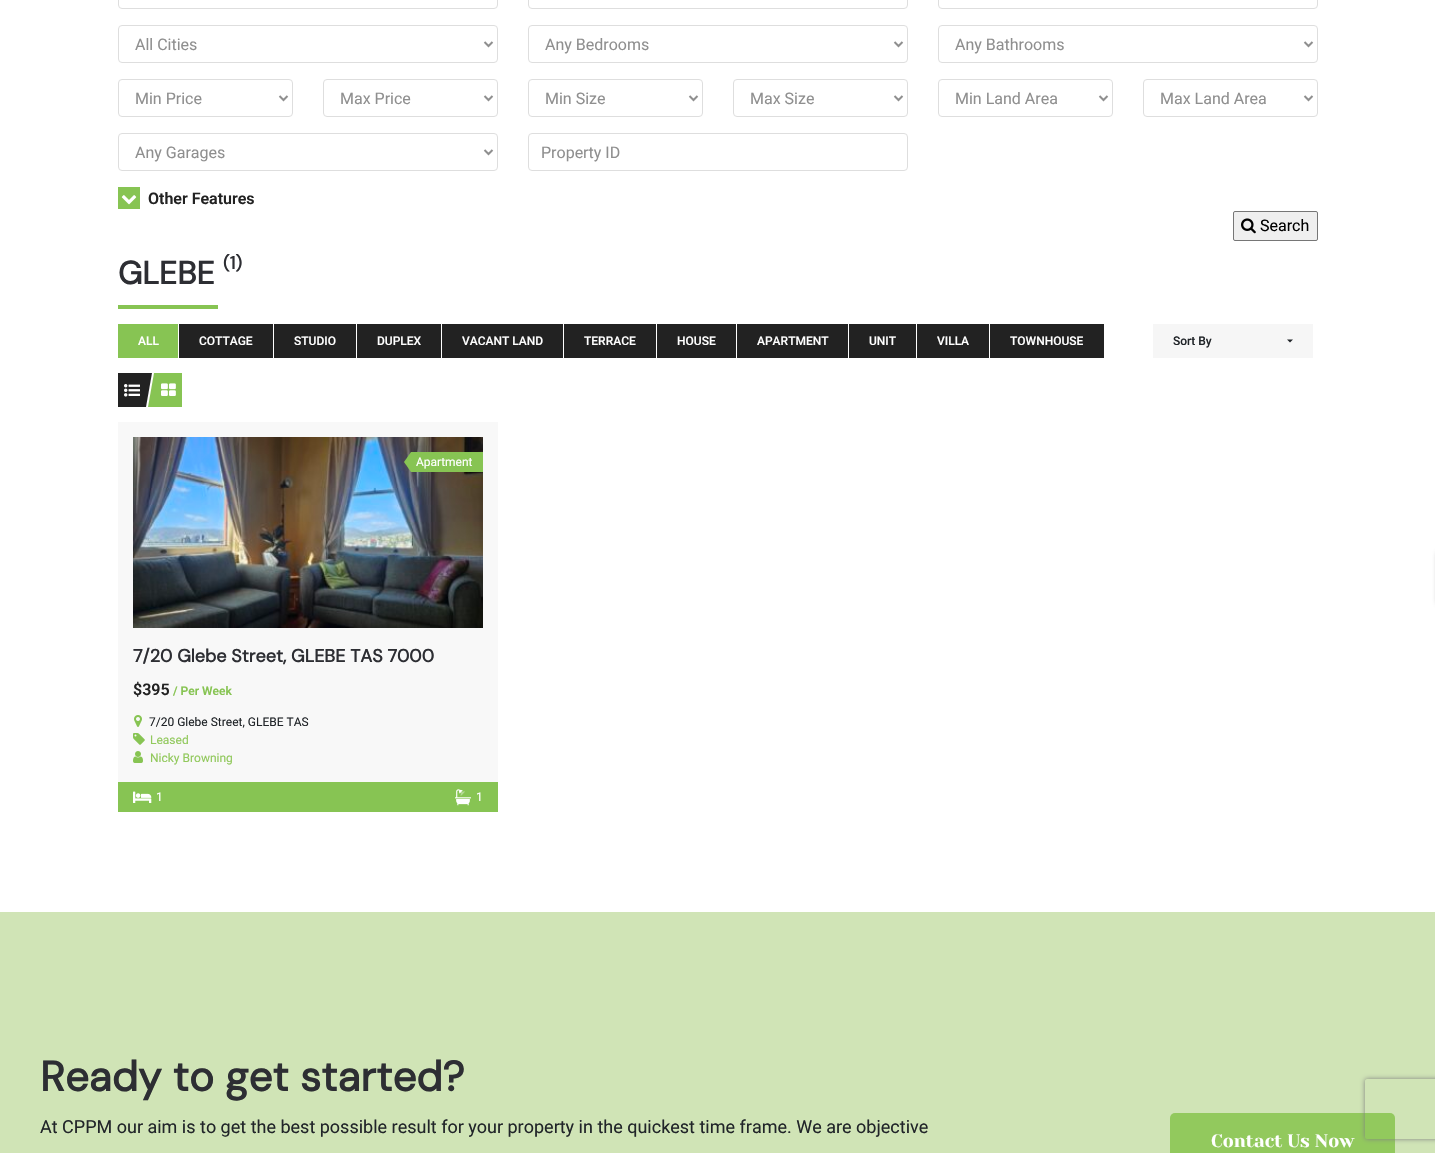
void draw(SkCanvas* c) {
SkPaint p;
p.setAntiAlias(true);
auto F=[&](const char* family, int weight, float size, bool italic = false){SkFontStyle style(weight, SkFontStyle::kNormal_Width,italic ? SkFontStyle::kItalic_Slant : SkFontStyle::kUpright_Slant);SkFont result(fontMgr->matchFamilyStyle(family, style), size);result.setSubpixel(true);return result;};
auto T=[&](const char* s, float x, float y, const SkFont& font){c->drawString(s, x, y, font, p);};
auto R=[&](float x, float y, float w, float h){c->drawRect(SkRect::MakeXYWH(x, y, w, h), p);};
auto Q=[&](float x, float y, float w, float h, float radius){c->drawRoundRect(SkRect::MakeXYWH(x, y, w, h), radius, radius, p);};
auto I=[&](const char* path, float x, float y, float w, float h){auto image = SkImages::DeferredFromEncodedData(SkData::MakeFromFileName(path));c->drawImageRect(image, SkRect::MakeXYWH(x, y, w, h), SkSamplingOptions());};
auto P=[&](const char* data, bool evenOdd = false){SkPath result = *SkParsePath::FromSVGString(data);if (evenOdd) result.setFillType(SkPathFillType::kEvenOdd);return result;};
c->clear(0xffffffff);
p.setStroke(true);
p.setStrokeWidth(1);
p.setColor(0xffdedede);
c->drawRoundRect(SkRect::MakeXYWH(118.5,-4.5,379,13),3.5,3.5,p);
c->drawRoundRect(SkRect::MakeXYWH(528.5,-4.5,379,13),3.5,3.5,p);
c->drawRoundRect(SkRect::MakeXYWH(938.5,-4.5,379,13),3.5,3.5,p);
c->drawRoundRect(SkRect::MakeXYWH(118.5,25.5,379,37),3.5,3.5,p);
p.setStrokeWidth(2);
p.setColor(0xff8f8f8f);
c->drawPath(P("M484.5 42l4 4l4-4"),p);
auto f1 = F("Roboto",400,16);
p.setStroke(false);
T("All Cities",135,50,f1);
p.setStroke(true);
p.setStrokeWidth(1);
p.setColor(0xffdedede);
c->drawRoundRect(SkRect::MakeXYWH(528.5,25.5,379,37),3.5,3.5,p);
p.setStrokeWidth(2);
p.setColor(0xff8f8f8f);
c->drawPath(P("M894.5 42l4 4l4-4"),p);
p.setStroke(false);
T("Any Bedrooms",545,50,f1);
p.setStroke(true);
p.setStrokeWidth(1);
p.setColor(0xffdedede);
c->drawRoundRect(SkRect::MakeXYWH(938.5,25.5,379,37),3.5,3.5,p);
p.setStrokeWidth(2);
p.setColor(0xff8f8f8f);
c->drawPath(P("M1304.5 42l4 4l4-4"),p);
p.setStroke(false);
T("Any Bathrooms",955,50,f1);
p.setStroke(true);
p.setStrokeWidth(1);
p.setColor(0xffdedede);
c->drawRoundRect(SkRect::MakeXYWH(118.5,79.5,174,37),3.5,3.5,p);
p.setStrokeWidth(2);
p.setColor(0xff8f8f8f);
c->drawPath(P("M279.5 96l4 4l4-4"),p);
p.setStroke(false);
T("Min Price",135,104,f1);
p.setStroke(true);
p.setStrokeWidth(1);
p.setColor(0xffdedede);
c->drawRoundRect(SkRect::MakeXYWH(323.5,79.5,174,37),3.5,3.5,p);
p.setStrokeWidth(2);
p.setColor(0xff8f8f8f);
c->drawPath(P("M484.5 96l4 4l4-4"),p);
p.setStroke(false);
T("Max Price",340,104,f1);
p.setStroke(true);
p.setStrokeWidth(1);
p.setColor(0xffdedede);
c->drawRoundRect(SkRect::MakeXYWH(528.5,79.5,174,37),3.5,3.5,p);
p.setStrokeWidth(2);
p.setColor(0xff8f8f8f);
c->drawPath(P("M689.5 96l4 4l4-4"),p);
p.setStroke(false);
T("Min Size",545,104,f1);
p.setStroke(true);
p.setStrokeWidth(1);
p.setColor(0xffdedede);
c->drawRoundRect(SkRect::MakeXYWH(733.5,79.5,174,37),3.5,3.5,p);
p.setStrokeWidth(2);
p.setColor(0xff8f8f8f);
c->drawPath(P("M894.5 96l4 4l4-4"),p);
p.setStroke(false);
T("Max Size",750,104,f1);
p.setStroke(true);
p.setStrokeWidth(1);
p.setColor(0xffdedede);
c->drawRoundRect(SkRect::MakeXYWH(938.5,79.5,174,37),3.5,3.5,p);
p.setStrokeWidth(2);
p.setColor(0xff8f8f8f);
c->drawPath(P("M1099.5 96l4 4l4-4"),p);
p.setStroke(false);
T("Min Land Area",955,104,f1);
p.setStroke(true);
p.setStrokeWidth(1);
p.setColor(0xffdedede);
c->drawRoundRect(SkRect::MakeXYWH(1143.5,79.5,174,37),3.5,3.5,p);
p.setStrokeWidth(2);
p.setColor(0xff8f8f8f);
c->drawPath(P("M1304.5 96l4 4l4-4"),p);
p.setStroke(false);
T("Max Land Area",1160,104,f1);
p.setStroke(true);
p.setStrokeWidth(1);
p.setColor(0xffdedede);
c->drawRoundRect(SkRect::MakeXYWH(118.5,133.5,379,37),3.5,3.5,p);
p.setStrokeWidth(2);
p.setColor(0xff8f8f8f);
c->drawPath(P("M484.5 150l4 4l4-4"),p);
p.setStroke(false);
T("Any Garages",135,158,f1);
p.setStroke(true);
p.setStrokeWidth(1);
p.setColor(0xffdedede);
c->drawRoundRect(SkRect::MakeXYWH(528.5,133.5,379,37),3.5,3.5,p);
p.setStroke(false);
p.setColor(0xff8f8f8f);
T("Property ID",541,158,f1);
p.setColor(0xff87c453);
R(118,187,22,22);
I("1.png",121,195,16,10);
auto f2 = F("Roboto",600,16);
p.setColor(0xff222222);
T("Other Features",148,204,f2);
p.setColor(0xffefefef);
c->drawRoundRect(SkRect::MakeXYWH(1233.5,211.5,84,29),1.5,1.5,p);
p.setStroke(true);
p.setColor(0xff767676);
c->drawRoundRect(SkRect::MakeXYWH(1233.5,211.5,84,29),1.5,1.5,p);
I("2.png",1241,218,15,16);
p.setStroke(false);
p.setColor(0xff000000);
T("Search",1260,231,f1);
auto f3 = F("DM Sans",700,32);
p.setColor(0xff2d2e33);
T("GLEBE",118,284,f3);
auto f4 = F("DM Sans",700,18);
T("(1)",223,269,f4);
p.setColor(0xff87c453);
R(118,305,100,4);
R(118,324,60,34);
auto f5 = F("Roboto",500,12);
p.setColor(0xffffffff);
T("ALL",138,345,f5);
p.setColor(0xff222222);
R(179,324,94,34);
p.setColor(0xffffffff);
T("COTTAGE",199,345,f5);
p.setColor(0xff222222);
R(274,324,82,34);
p.setColor(0xffffffff);
T("STUDIO",294,345,f5);
p.setColor(0xff222222);
R(357,324,84,34);
p.setColor(0xffffffff);
T("DUPLEX",377,345,f5);
p.setColor(0xff222222);
R(442,324,121,34);
p.setColor(0xffffffff);
T("VACANT LAND",462,345,f5);
p.setColor(0xff222222);
R(564,324,92,34);
p.setColor(0xffffffff);
T("TERRACE",584,345,f5);
p.setColor(0xff222222);
R(657,324,79,34);
p.setColor(0xffffffff);
T("HOUSE",677,345,f5);
p.setColor(0xff222222);
R(737,324,111,34);
p.setColor(0xffffffff);
T("APARTMENT",757,345,f5);
p.setColor(0xff222222);
R(849,324,67,34);
p.setColor(0xffffffff);
T("UNIT",869,345,f5);
p.setColor(0xff222222);
R(917,324,72,34);
p.setColor(0xffffffff);
T("VILLA",937,345,f5);
p.setColor(0xff222222);
R(990,324,114,34);
p.setColor(0xffffffff);
T("TOWNHOUSE",1010,345,f5);
p.setColor(0xfff6f6f6);
R(1153,324,160,34);
p.setColor(0xff212529);
T("Sort By",1173,345,f5);
c->drawPath(P("M1287 339.5h6l-3 3z"),p);
p.setColor(0xff222222);
R(118,373,28,34);
I("3.png",124,384,16,13);
c->drawPath(P("M146 373h6l-6 34z"),p);
p.setColor(0xff87c453);
R(154,373,28,34);
c->drawPath(P("M154 407h-6l6-34z"),p);
I("4.png",161,383,15,13);
p.setColor(0xfff8f8f8);
R(118,422,380,360);
I("5.png",133,437,350,191);
p.setColor(0xff87c453);
R(411,452,72,20);
c->drawPath(P("M411 452v20l-7-10z"),p);
auto f6 = F("Roboto",400,12);
p.setColor(0xffffffff);
T("Apartment",416,466,f6);
p.setColor(0xff2d2e33);
T("7/20 Glebe Street, GLEBE TAS 7000",133,662,f4);
p.setColor(0xff222222);
T("$395",133,695,f2);
auto f7 = F("Roboto",600,12);
p.setColor(0xff87c453);
T("/ Per Week",173,695,f7);
I("6.png",134,715,8,12);
p.setColor(0xff212529);
T("7/20 Glebe Street, GLEBE TAS",149,726,f6);
I("7.png",133,733,12,12);
p.setColor(0xff92c95d);
T("Leased",150,744,f6);
I("8.png",133,751,10,12);
T("Nicky Browning",150,762,f6);
p.setColor(0xff87c453);
R(118,782,380,30);
I("9.png",133,791,19,12);
p.setColor(0xffffffff);
T("1",156,801,f6);
I("10.png",455,789,16,17);
T("1",476,801,f6);
p.setColor(0xffd0e4b6);
R(0,912,1435,241);
auto f8 = F("DM Sans",700,42);
p.setColor(0xff2d2e33);
T("Ready to get started?",40,1091,f8);
auto f9 = F("Roboto",400,18);
p.setColor(0xff212529);
T("At CPPM our aim is to get the best possible result for your property in the quickest time frame. We are objective",40,1133,f9);
p.setColor(0xff92c95d);
Q(1170,1113,225,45,5);
auto f10 = F("Yeseva One",400,18);
p.setColor(0xffffffff);
T("Contact Us Now",1211,1147,f10);
p.setColor(0xff777777);
p.setMaskFilter(SkMaskFilter::MakeBlur(kNormal_SkBlurStyle, 2.5));
c->drawRect(SkRect::MakeXYWH(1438,553,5,50),p);
p.setMaskFilter(nullptr);
c->save();
c->clipPath(P("M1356 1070h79v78h-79zm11 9h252c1 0 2 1 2 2v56c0 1-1 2-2 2h-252c-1 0-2-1-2-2v-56c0-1 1-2 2-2z",true),true);
p.setColor(0xff808080);
p.setMaskFilter(SkMaskFilter::MakeBlur(kNormal_SkBlurStyle, 2.5));
c->drawRoundRect(SkRect::MakeXYWH(1365,1079,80,60),2,2,p);
p.setMaskFilter(nullptr);
c->restore();
}
